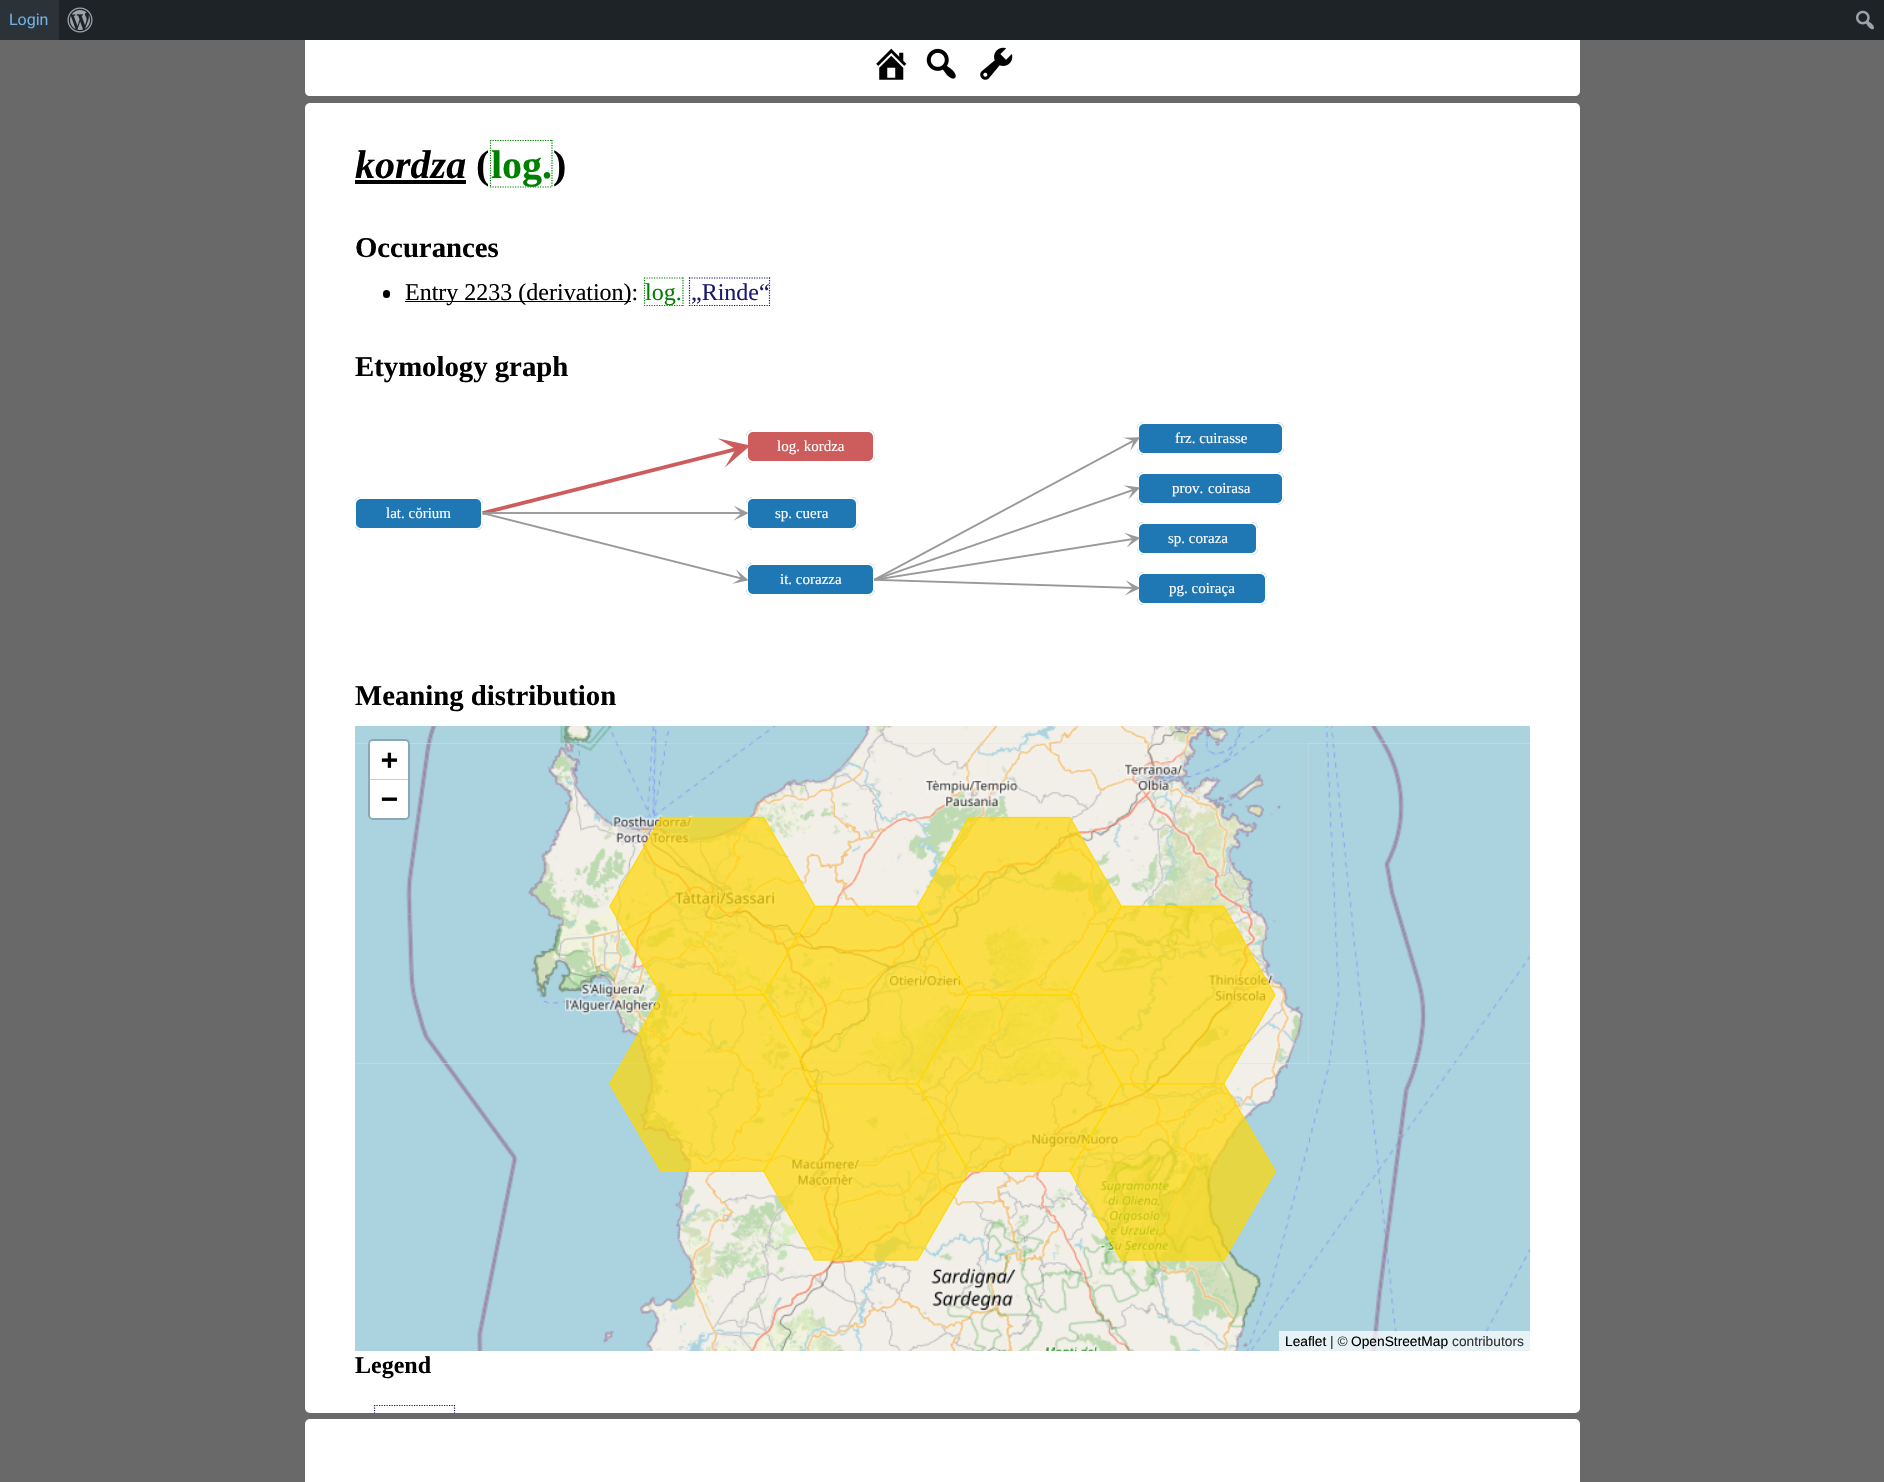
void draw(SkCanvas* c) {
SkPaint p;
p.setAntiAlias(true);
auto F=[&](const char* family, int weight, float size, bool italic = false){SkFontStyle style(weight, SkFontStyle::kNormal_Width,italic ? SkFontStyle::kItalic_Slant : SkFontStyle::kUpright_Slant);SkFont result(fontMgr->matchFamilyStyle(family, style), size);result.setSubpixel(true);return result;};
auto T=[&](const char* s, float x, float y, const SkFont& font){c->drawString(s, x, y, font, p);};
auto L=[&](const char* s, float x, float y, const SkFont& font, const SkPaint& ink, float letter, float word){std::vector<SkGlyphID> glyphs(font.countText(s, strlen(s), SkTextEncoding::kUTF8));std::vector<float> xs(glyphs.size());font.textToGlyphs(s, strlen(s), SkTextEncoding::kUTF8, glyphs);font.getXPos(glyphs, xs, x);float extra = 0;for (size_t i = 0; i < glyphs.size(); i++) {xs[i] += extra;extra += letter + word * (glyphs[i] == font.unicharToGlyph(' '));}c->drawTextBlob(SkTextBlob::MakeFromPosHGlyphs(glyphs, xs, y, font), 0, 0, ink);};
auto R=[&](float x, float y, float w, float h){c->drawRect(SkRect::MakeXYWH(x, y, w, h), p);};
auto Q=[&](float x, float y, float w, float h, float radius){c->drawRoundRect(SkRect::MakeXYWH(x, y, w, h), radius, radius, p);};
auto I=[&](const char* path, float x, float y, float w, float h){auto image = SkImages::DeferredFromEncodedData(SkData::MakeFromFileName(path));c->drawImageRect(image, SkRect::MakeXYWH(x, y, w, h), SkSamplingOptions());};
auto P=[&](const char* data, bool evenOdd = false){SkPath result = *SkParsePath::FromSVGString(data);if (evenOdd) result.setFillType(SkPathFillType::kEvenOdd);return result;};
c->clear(0xff696969);
p.setColor(0xffffffff);
c->drawPath(P("M305 36h1275v55c0 3-2 5-5 5h-1265c-3 0-5-2-5-5z"),p);
p.setColor(0xff1d2327);
R(59,0,1825,40);
p.setColor(0xff2c3338);
R(0,0,59,40);
auto f1 = F("Roboto",400,16);
p.setColor(0xff72aee6);
T("Login",9,25,f1);
I("1.png",67,7,26,26);
I("2.png",1856,10,18,20);
I("3.png",876,48,31,32);
I("4.png",926,48,30,31);
I("5.png",980,47,33,33);
p.setColor(0xffffffff);
Q(305,103,1275,1310,5);
auto f2 = F("Liberation Serif",700,40,true);
p.setColor(0xff000000);
T("kordza",355,178,f2);
R(355,180,111,4);
auto f3 = F("Liberation Serif",700,40);
T("(",476,178,f3);
p.setStroke(true);
p.setStrokeWidth(1.2);
p.setColor(0xff008000);
p.setPathEffect(SkDashPathEffect::Make({{1.25f,1.25f}}, 0));
c->drawPath(P("M490 140.5h62.5m-.5-.5v47.5m-62-.5h62.5"),p);
p.setPathEffect(nullptr);
p.setPathEffect(SkDashPathEffect::Make({{1.25f,1.25f}}, 0));
c->drawPath(P("M490.5 140v47.5"),p);
p.setPathEffect(nullptr);
p.setStroke(false);
T("log.",491,178,f3);
p.setColor(0xff000000);
T(")",553,178,f3);
auto f4 = F("Liberation Serif",700,28.75);
T("Occurances",355,257,f4);
Q(383,290,7,8,3.5);
R(405,301,226,1);
auto f5 = F("Liberation Serif",400,24);
T("Entry 2233 (derivation):",405,300,f5);
p.setStroke(true);
p.setColor(0xff008000);
p.setPathEffect(SkDashPathEffect::Make({{1.25f,1.25f}}, 0));
c->drawPath(P("M644 278h40m-1-.5v28.5m-39-.5h40m-39.5-28v28.5"),p);
p.setPathEffect(nullptr);
p.setStroke(false);
T("log.",645,300,f5);
p.setStroke(true);
p.setColor(0xff191970);
p.setPathEffect(SkDashPathEffect::Make({{1.25f,1.25f}}, 0));
c->drawPath(P("M689 278h81"),p);
p.setPathEffect(nullptr);
p.setPathEffect(SkDashPathEffect::Make({{1.25f,1.25f}}, 0));
c->drawPath(P("M769.5 277.5v28.5"),p);
p.setPathEffect(nullptr);
p.setStroke(false);
T("„Rinde“",691,300,f5);
p.setStroke(true);
p.setPathEffect(SkDashPathEffect::Make({{1.25f,1.25f}}, 0));
c->drawPath(P("M689 305.5h81"),p);
p.setPathEffect(nullptr);
p.setPathEffect(SkDashPathEffect::Make({{1.25f,1.25f}}, 0));
c->drawPath(P("M689.5 277.5v28.5"),p);
p.setPathEffect(nullptr);
p.setStroke(false);
p.setColor(0xff000000);
T("Etymology graph",355,376,f4);
I("6.png",355,422,929,183);
auto f6 = F("Liberation Serif",400,15);
p.setColor(0xffffffff);
T("frz. cuirasse",1175,443,f6);
T("log. kordza",777,451,f6);
L("prov. coirasa",1172,493,f6,p,0,1);
T("lat. cŏrium",386,518,f6);
T("sp. cuera",775,518,f6);
T("sp. coraza",1168,543,f6);
T("it. corazza",780,584,f6);
T("pg. coiraça",1169,593,f6);
p.setColor(0xff000000);
T("Meaning distribution",355,705,f4);
p.setColor(0xffdddddd);
R(355,743,1175,321);
I("12.png",668,743,321,321);
I("7.png",355,726,314,18);
I("13.png",988,743,321,321);
I("8.png",669,726,320,18);
I("9.png",989,726,320,18);
I("10.png",1309,726,221,18);
I("11.png",355,744,314,320);
I("14.png",1309,744,221,320);
I("15.png",355,1064,314,287);
I("16.png",669,1064,320,287);
I("17.png",989,1064,320,287);
I("18.png",1309,1064,221,287);
I("19.png",609,816,667,445);
p.setStroke(true);
p.setStrokeWidth(3);
p.setColor(0x33000000);
c->drawRoundRect(SkRect::MakeXYWH(369.5,740.5,39,78),3.5,3.5,p);
p.setStroke(false);
p.setColor(0xffffffff);
c->drawPath(P("M372.5 741h33c1.5 0 2.5 1 2.5 2.5v36.5h-38v-36.5c0-1.5 1-2.5 2.5-2.5z"),p);
p.setColor(0xffcccccc);
R(370,779,38,1);
auto f7 = F("DejaVu Sans Mono",700,28);
p.setColor(0xff000000);
T("+",381,769,f7);
p.setColor(0xffffffff);
c->drawPath(P("M370 780h38v35.5c0 1.5-1 2.5-2.5 2.5h-33c-1.5 0-2.5-1-2.5-2.5z"),p);
p.setColor(0xff000000);
T("−",381,808,f7);
p.setColor(0xb3ffffff);
R(1279,1331,251,20);
auto f8 = F("Liberation Sans",400,13.75);
p.setColor(0xff000000);
T("Leaflet",1285,1346,f8);
p.setColor(0xff333333);
T("| ©",1330,1346,f8);
p.setColor(0xff000000);
T("OpenStreetMap",1351,1346,f8);
p.setColor(0xff333333);
T("contributors",1452,1346,f8);
auto f9 = F("Liberation Serif",700,24);
p.setColor(0xff000000);
T("Legend",355,1373,f9);
p.setStroke(true);
p.setStrokeWidth(1.2);
p.setColor(0xff191970);
p.setPathEffect(SkDashPathEffect::Make({{1.25f,1.25f}}, 0));
c->drawPath(P("M374 1405.5h81"),p);
p.setPathEffect(nullptr);
c->save();
c->clipPath(P("M310 103h1265c3 0 5 2 5 5v1300c0 3-2 5-5 5h-1265c-3 0-5-2-5-5v-1300c0-3 2-5 5-5z"),true);
p.setPathEffect(SkDashPathEffect::Make({{1.25f,1.25f}}, 0));
c->drawPath(P("M374.5 1405v29"),p);
p.setPathEffect(nullptr);
p.setPathEffect(SkDashPathEffect::Make({{1.25f,1.25f}}, 0));
c->drawPath(P("M454.5 1405v29"),p);
p.setPathEffect(nullptr);
c->restore();
p.setStroke(false);
p.setColor(0xffffffff);
Q(305,1419,1275,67,5);
}
